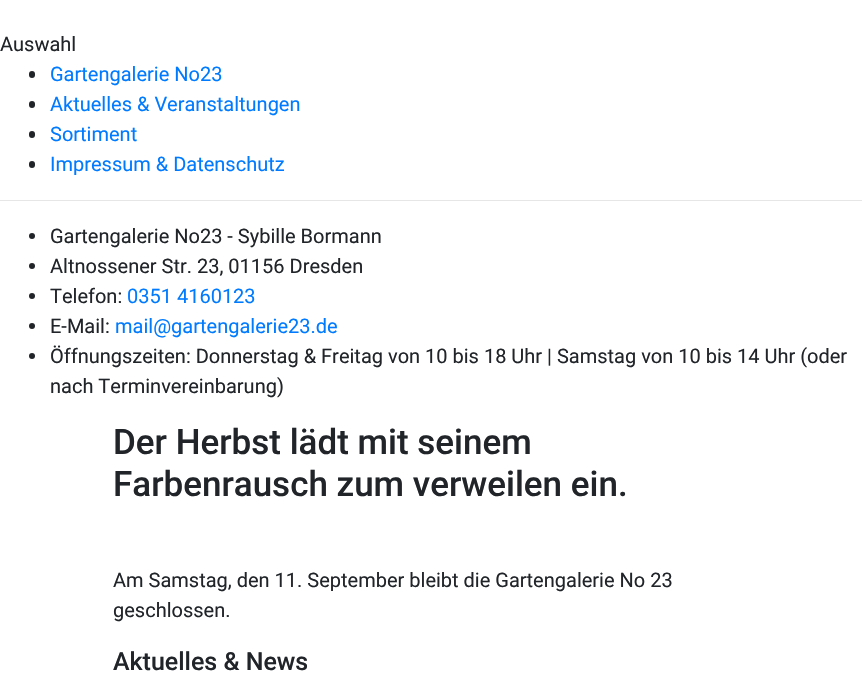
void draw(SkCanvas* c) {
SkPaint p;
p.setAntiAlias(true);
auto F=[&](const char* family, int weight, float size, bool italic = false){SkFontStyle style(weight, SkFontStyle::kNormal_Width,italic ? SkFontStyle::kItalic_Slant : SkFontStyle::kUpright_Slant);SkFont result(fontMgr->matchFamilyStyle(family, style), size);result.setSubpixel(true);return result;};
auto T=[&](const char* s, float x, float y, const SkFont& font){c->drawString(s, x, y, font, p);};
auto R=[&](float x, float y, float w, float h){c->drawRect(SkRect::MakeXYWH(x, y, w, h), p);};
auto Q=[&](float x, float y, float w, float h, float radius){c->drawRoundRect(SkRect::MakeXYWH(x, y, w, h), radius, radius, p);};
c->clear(0xffffffff);
auto f1 = F("Roboto",400,20);
p.setColor(0xff212529);
T("Auswahl",0,51,f1);
Q(29,71,6,7,3);
p.setColor(0xff007bff);
T("Gartengalerie No23",50,81,f1);
p.setColor(0xff212529);
Q(29,101,6,7,3);
p.setColor(0xff007bff);
T("Aktuelles & Veranstaltungen",50,111,f1);
p.setColor(0xff212529);
Q(29,131,6,7,3);
p.setColor(0xff007bff);
T("Sortiment",50,141,f1);
p.setColor(0xff212529);
Q(29,161,6,7,3);
p.setColor(0xff007bff);
T("Impressum & Datenschutz",50,171,f1);
p.setColor(0xffe6e6e6);
R(0,200,862,1);
p.setColor(0xff212529);
c->drawCircle(32,236,3,p);
T("Gartengalerie No23 - Sybille Bormann",50,243,f1);
c->drawCircle(32,266,3,p);
T("Altnossener Str. 23, 01156 Dresden",50,273,f1);
c->drawCircle(32,296,3,p);
T("Telefon:",50,303,f1);
p.setColor(0xff007bff);
T("0351 4160123",127,303,f1);
p.setColor(0xff212529);
c->drawCircle(32,326,3,p);
T("E-Mail:",50,333,f1);
p.setColor(0xff007bff);
T("mail@gartengalerie23.de",115,333,f1);
p.setColor(0xff212529);
c->drawCircle(32,356,3,p);
T("Öffnungszeiten: Donnerstag & Freitag von 10 bis 18 Uhr | Samstag von 10 bis 14 Uhr (oder",50,363,f1);
T("nach Terminvereinbarung)",50,393,f1);
auto f2 = F("Roboto",500,35);
T("Der Herbst lädt mit seinem",113,454,f2);
T("Farbenrausch zum verweilen ein.",113,496,f2);
T("Am Samstag, den 11. September bleibt die Gartengalerie No 23",113,587,f1);
T("geschlossen.",113,617,f1);
auto f3 = F("Roboto",500,25);
T("Aktuelles & News",113,670,f3);
}
